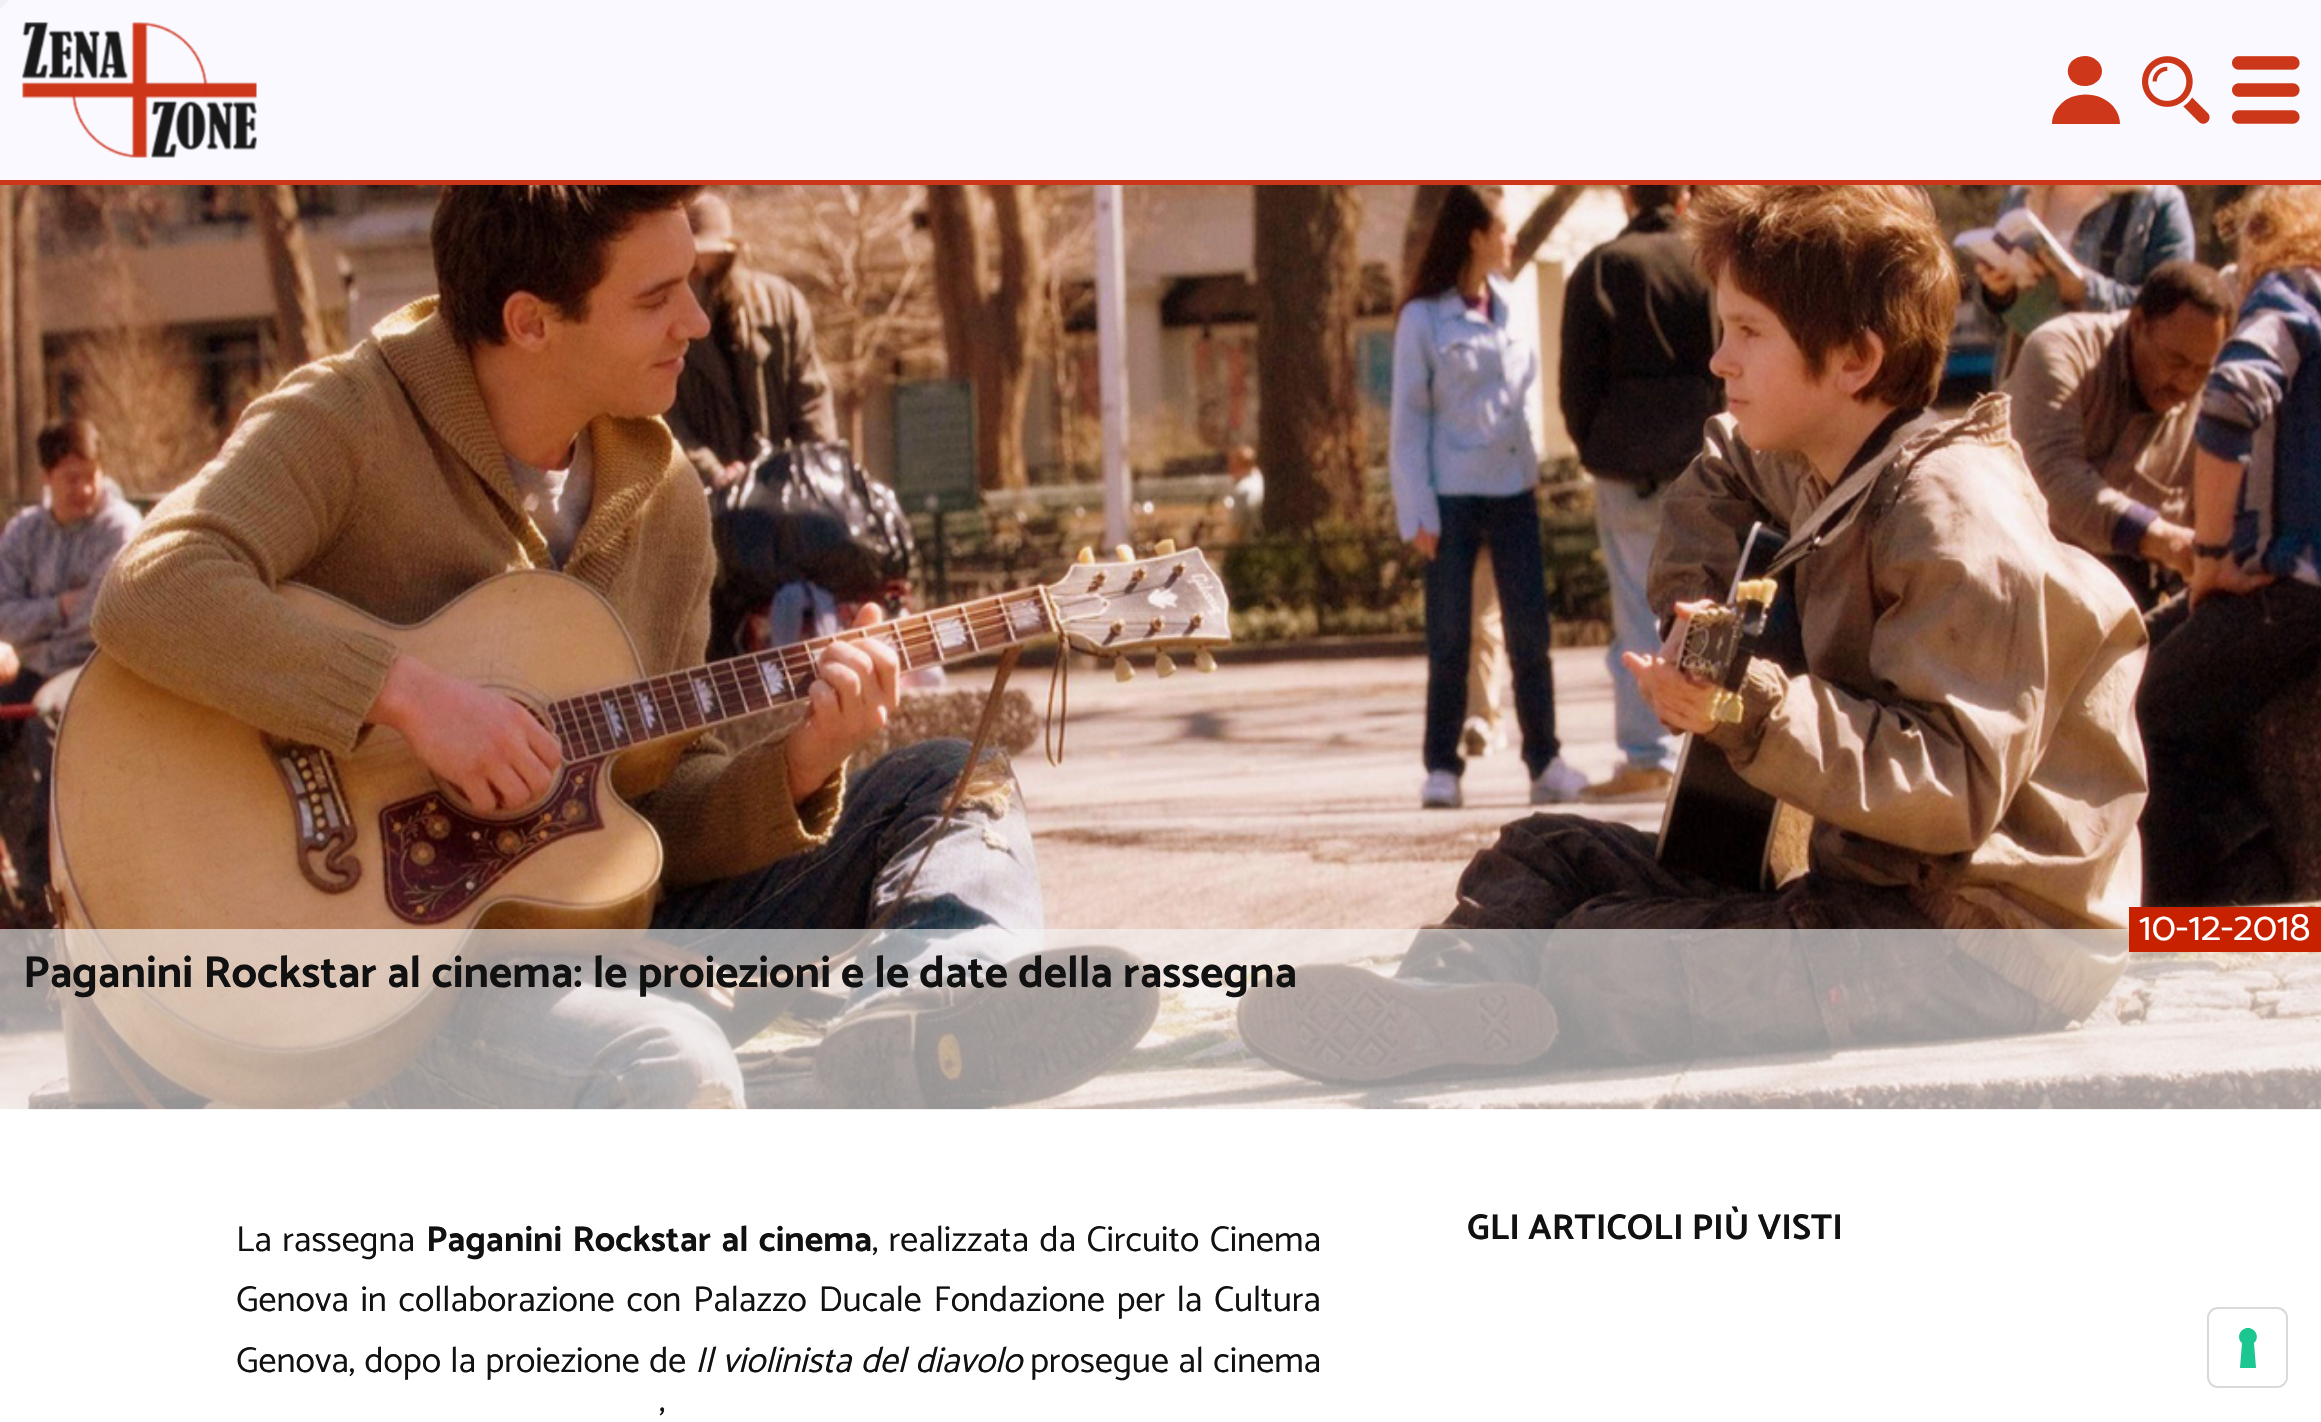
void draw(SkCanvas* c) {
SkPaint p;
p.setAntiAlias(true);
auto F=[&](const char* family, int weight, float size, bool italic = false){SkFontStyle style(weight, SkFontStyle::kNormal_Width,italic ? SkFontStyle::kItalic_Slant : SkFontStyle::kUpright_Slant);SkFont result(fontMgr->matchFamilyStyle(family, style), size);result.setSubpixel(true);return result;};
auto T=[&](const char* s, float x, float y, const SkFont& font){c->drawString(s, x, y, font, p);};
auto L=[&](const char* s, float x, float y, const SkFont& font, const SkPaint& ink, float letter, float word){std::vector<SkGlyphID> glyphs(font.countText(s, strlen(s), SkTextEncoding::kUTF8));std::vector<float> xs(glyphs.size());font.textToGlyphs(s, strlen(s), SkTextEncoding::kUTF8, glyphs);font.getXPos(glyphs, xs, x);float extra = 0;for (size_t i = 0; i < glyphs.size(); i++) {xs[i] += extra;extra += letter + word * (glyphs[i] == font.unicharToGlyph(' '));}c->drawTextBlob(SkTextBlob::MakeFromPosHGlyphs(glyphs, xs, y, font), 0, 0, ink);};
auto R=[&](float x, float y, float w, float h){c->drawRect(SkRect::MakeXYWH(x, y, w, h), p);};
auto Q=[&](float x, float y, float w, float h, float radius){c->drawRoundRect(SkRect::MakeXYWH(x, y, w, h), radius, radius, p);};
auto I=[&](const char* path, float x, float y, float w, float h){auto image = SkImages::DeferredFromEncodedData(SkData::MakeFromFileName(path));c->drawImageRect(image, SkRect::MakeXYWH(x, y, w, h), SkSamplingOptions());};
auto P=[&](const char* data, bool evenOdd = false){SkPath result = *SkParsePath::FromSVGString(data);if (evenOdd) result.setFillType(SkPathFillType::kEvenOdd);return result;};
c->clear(0xffffffff);
p.setColor(0xff9f9f9f);
c->drawPath(P("M0 0h9l-4.5 4.5z"),p);
p.setColor(0xffeeeeee);
c->drawPath(P("M9 0v9l-4.5-4.5z"),p);
c->drawPath(P("M9 9h-9l4.5-4.5z"),p);
p.setColor(0xff9f9f9f);
c->drawPath(P("M0 9v-9l4.5 4.5z"),p);
I("4.png",0,180,2321,930);
p.setColor(0xe6f8f8ff);
R(0,0,2321,185);
p.setColor(0xe6c82100);
R(0,180,2321,5);
I("1.png",22,22,235,136);
p.setColor(0xffce371a);
c->drawPath(P("M2102 71c0 5-3 10-7 12c-2 2-7 3-9 3c-23 1-25-29-1-30c8 0 17 6 17 15zm18 53h-68c0-7 3-14 8-19c13-14 39-14 53 1c4 5 7 11 7 18z"),p);
I("2.png",2142,56,68,68);
I("3.png",2232,56,68,68);
p.setColor(0x99f5f5f5);
R(0,929,2321,180);
p.setColor(0xffc82100);
R(2129,907,192,45);
auto f1 = F("Catamaran",400,40.5);
p.setColor(0xffffffff);
T("10-12-2018",2139,940,f1);
auto f2 = F("Catamaran",700,45);
p.setColor(0xff111111);
T("Paganini Rockstar al cinema: le proiezioni e le date della rassegna",23,987,f2);
auto f3 = F("Catamaran",400,36);
L("La rassegna",236,1251,f3,p,0,2);
auto f4 = F("Catamaran",700,36);
L("Paganini Rockstar al cinema",426,1251,f4,p,0,2);
L(", realizzata da Circuito Cinema",872,1251,f3,p,0,2);
L("Genova in collaborazione con Palazzo Ducale Fondazione per la Cultura",236,1311,f3,p,0,3.25);
L("Genova, dopo la proiezione de",236,1372,f3,p,0,1);
auto f5 = F("Catamaran",400,36,true);
L("Il violinista del diavolo",695,1372,f5,p,0,1);
L("prosegue al cinema",1030,1372,f3,p,0,1);
L("’",659,1433,f3,p,0,2);
T("GLI ARTICOLI PIÙ VISTI",1467,1239,f4);
p.setStroke(true);
p.setStrokeWidth(2);
p.setColor(0xffd9d9d9);
c->drawRoundRect(SkRect::MakeXYWH(2208,1308,79,79),10,10,p);
p.setStroke(false);
p.setColor(0xffffffff);
Q(2210,1310,76,76,9);
p.setColor(0xff1cc691);
c->drawPath(P("M2248 1328c8 0 12 10 6 15l2 25h-16l2-25c-6-5-2-15 6-15z",true),p);
}
